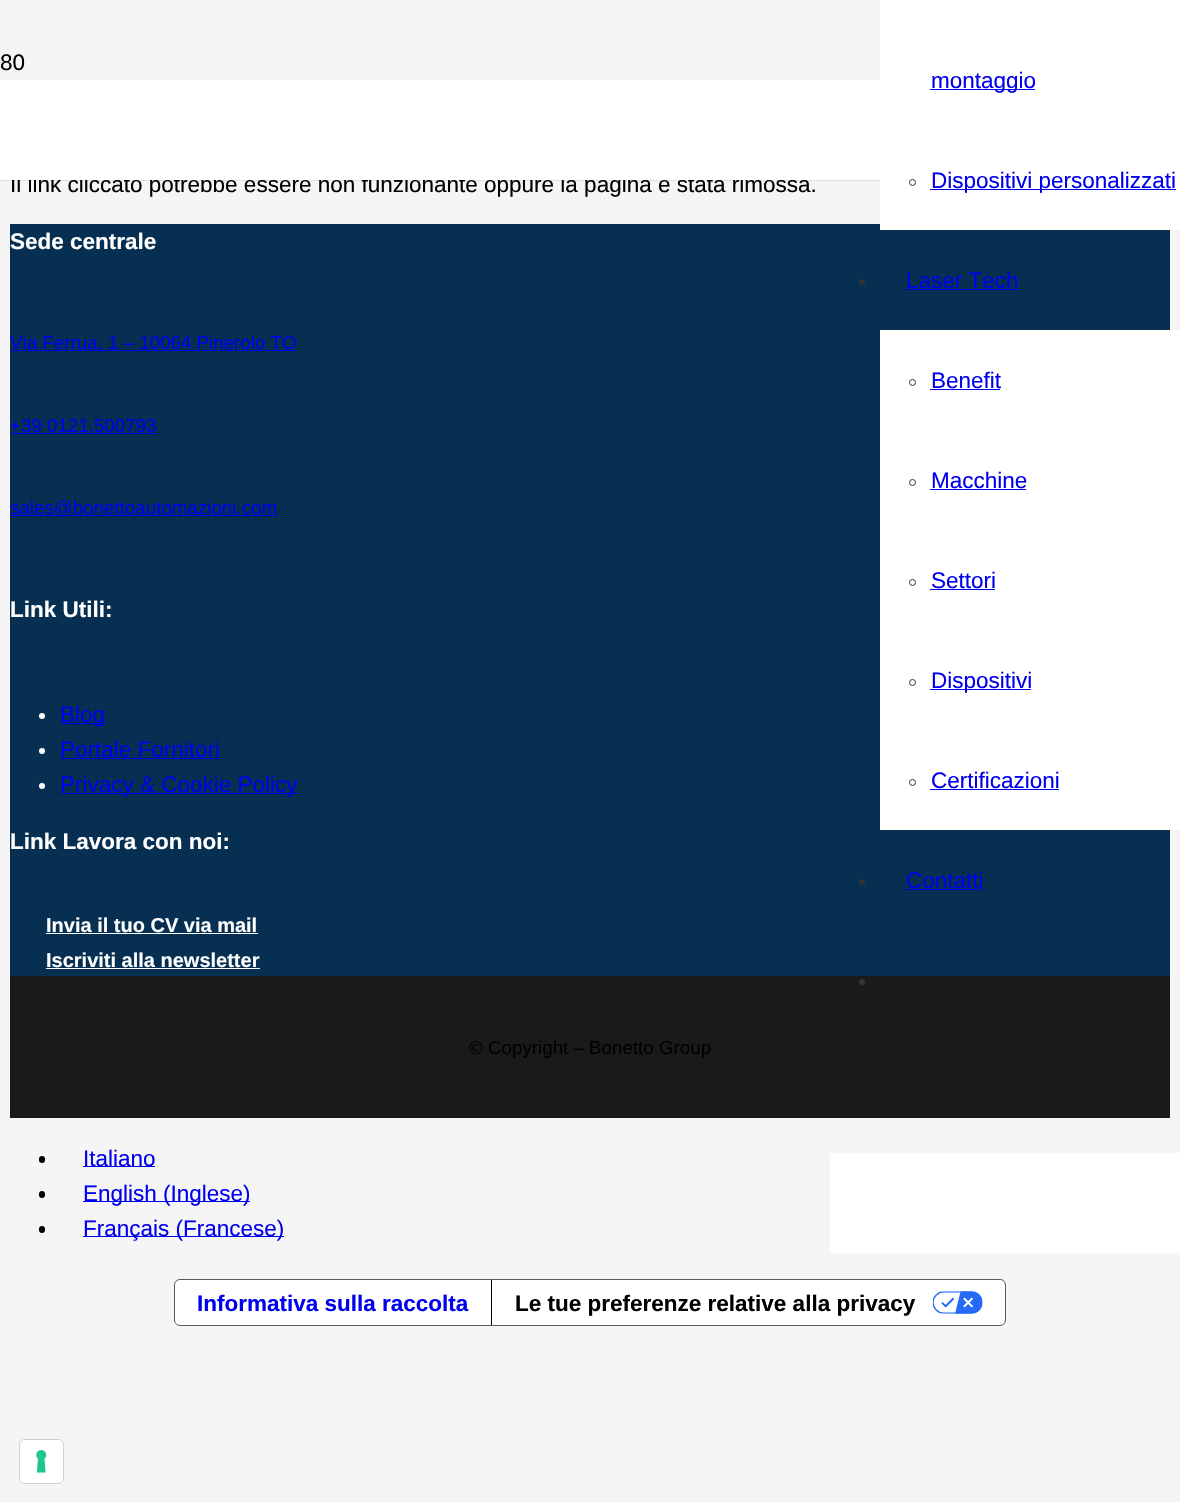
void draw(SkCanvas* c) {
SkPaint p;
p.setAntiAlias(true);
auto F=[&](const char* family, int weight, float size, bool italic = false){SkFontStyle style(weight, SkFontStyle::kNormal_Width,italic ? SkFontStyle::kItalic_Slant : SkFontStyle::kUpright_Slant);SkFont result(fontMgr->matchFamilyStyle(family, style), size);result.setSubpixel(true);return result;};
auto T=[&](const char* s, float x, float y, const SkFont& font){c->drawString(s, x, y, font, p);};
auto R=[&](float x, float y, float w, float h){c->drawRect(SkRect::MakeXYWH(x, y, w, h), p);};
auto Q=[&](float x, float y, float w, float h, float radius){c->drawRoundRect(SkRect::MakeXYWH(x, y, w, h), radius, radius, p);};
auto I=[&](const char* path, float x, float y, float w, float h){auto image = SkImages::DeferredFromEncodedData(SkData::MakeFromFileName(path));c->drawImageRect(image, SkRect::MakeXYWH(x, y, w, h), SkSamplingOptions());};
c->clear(0xfff5f5f5);
auto f1 = F("Liberation Sans",400,22.5);
p.setColor(0xff000000);
T("80",0,70,f1);
p.setColor(0x14000000);
R(0,180,880,1);
p.setColor(0xff000000);
T("Il link cliccato potrebbe essere non funzionante oppure la pagina è stata rimossa.",10,192,f1);
p.setColor(0xffffffff);
R(0,80,880,100);
p.setColor(0xff062f51);
R(10,224,1160,752);
p.setColor(0xffffffff);
R(880,0,300,230);
p.setColor(0xff0000ee);
R(930,89,105,1);
T("montaggio",931,88,f1);
p.setStroke(true);
p.setStrokeWidth(1);
p.setColor(0xff333333);
c->drawCircle(912.5,182.5,3,p);
p.setStroke(false);
p.setColor(0xff0000ee);
R(930,189,246,1);
T("Dispositivi personalizzati",931,188,f1);
p.setColor(0xff333333);
c->drawCircle(862,282,3,p);
p.setColor(0xff0000ee);
T("Laser Tech",906,288,f1);
R(905,289,113,1);
p.setColor(0xffffffff);
R(880,330,300,500);
p.setStroke(true);
p.setColor(0xff333333);
c->drawCircle(912.5,382.5,3,p);
p.setStroke(false);
p.setColor(0xff0000ee);
T("Benefit",931,388,f1);
R(930,389,70,1);
p.setStroke(true);
p.setColor(0xff333333);
c->drawCircle(912.5,482.5,3,p);
p.setStroke(false);
p.setColor(0xff0000ee);
T("Macchine",931,488,f1);
R(930,489,96,1);
p.setStroke(true);
p.setColor(0xff333333);
c->drawCircle(912.5,582.5,3,p);
p.setStroke(false);
p.setColor(0xff0000ee);
T("Settori",931,588,f1);
R(930,589,65,1);
p.setStroke(true);
p.setColor(0xff333333);
c->drawCircle(912.5,682.5,3,p);
p.setStroke(false);
p.setColor(0xff0000ee);
R(930,689,101,1);
T("Dispositivi",931,688,f1);
p.setStroke(true);
p.setColor(0xff333333);
c->drawCircle(912.5,782.5,3,p);
p.setStroke(false);
p.setColor(0xff0000ee);
T("Certificazioni",931,788,f1);
R(930,789,129,1);
p.setColor(0xff333333);
c->drawCircle(862,882,3,p);
p.setColor(0xff0000ee);
T("Contatti",906,888,f1);
R(905,889,78,1);
p.setColor(0xff1a1a1a);
R(10,976,1160,142);
p.setColor(0xff333333);
c->drawCircle(862,982,3,p);
p.setColor(0xffffffff);
R(830,1153,350,100);
auto f2 = F("Liberation Sans",700,22.5);
T("Sede centrale",10,249,f2);
p.setColor(0xff0000ee);
R(10,350,286,1);
auto f3 = F("Liberation Sans",400,18.75);
T("Via Ferrua, 1 – 10064 Pinerolo TO",10,349,f3);
T("+39 0121.500793",10,432,f3);
R(10,433,146,1);
R(10,515,268,1);
T("sales@bonettoautomazioni.com",10,514,f3);
p.setColor(0xffffffff);
T("Link Utili:",10,617,f2);
c->drawCircle(42,716,3,p);
p.setColor(0xff0000ee);
R(60,723,45,1);
T("Blog",60,722,f1);
p.setColor(0xffffffff);
c->drawCircle(42,751,3,p);
p.setColor(0xff0000ee);
T("Portale Fornitori",60,757,f1);
R(60,758,160,1);
p.setColor(0xffffffff);
c->drawCircle(42,786,3,p);
p.setColor(0xff0000ee);
R(60,793,238,1);
T("Privacy & Cookie Policy",60,792,f1);
p.setColor(0xffffffff);
T("Link Lavora con noi:",10,849,f2);
auto f4 = F("Liberation Sans",700,20);
T("Invia il tuo CV via mail",46,932,f4);
R(46,933,212,1);
T("Iscriviti alla newsletter",46,967,f4);
R(46,968,214,1);
p.setColor(0xff000000);
T("© Copyright – Bonetto Group",469,1054,f3);
Q(39,1156,6,7,3);
p.setColor(0xff0000ee);
R(83,1166,72,1);
T("Italiano",83,1166,f1);
p.setColor(0xff000000);
Q(39,1191,6,7,3);
p.setColor(0xff0000ee);
R(83,1201,167,1);
T("English (Inglese)",83,1201,f1);
p.setColor(0xff000000);
Q(39,1226,6,7,3);
p.setColor(0xff0000ee);
R(83,1236,201,1);
T("Français (Francese)",83,1236,f1);
p.setColor(0xffffffff);
c->drawRoundRect(SkRect::MakeXYWH(174.5,1279.5,831,46),5.5,5.5,p);
p.setStroke(true);
p.setColor(0xff595959);
c->drawRoundRect(SkRect::MakeXYWH(174.5,1279.5,831,46),5.5,5.5,p);
p.setStroke(false);
p.setColor(0xff0000ee);
T("Informativa sulla raccolta",197,1311,f2);
p.setColor(0xff000000);
R(491,1280,1,45);
T("Le tue preferenze relative alla privacy",515,1311,f2);
I("1.png",933,1291,50,23);
p.setStroke(true);
p.setColor(0xffd0d0d0);
c->drawRoundRect(SkRect::MakeXYWH(19.5,1439.5,44,44),5.5,5.5,p);
p.setStroke(false);
p.setColor(0xffffffff);
Q(20,1440,43,43,5);
I("2.png",36,1450,11,23);
}
